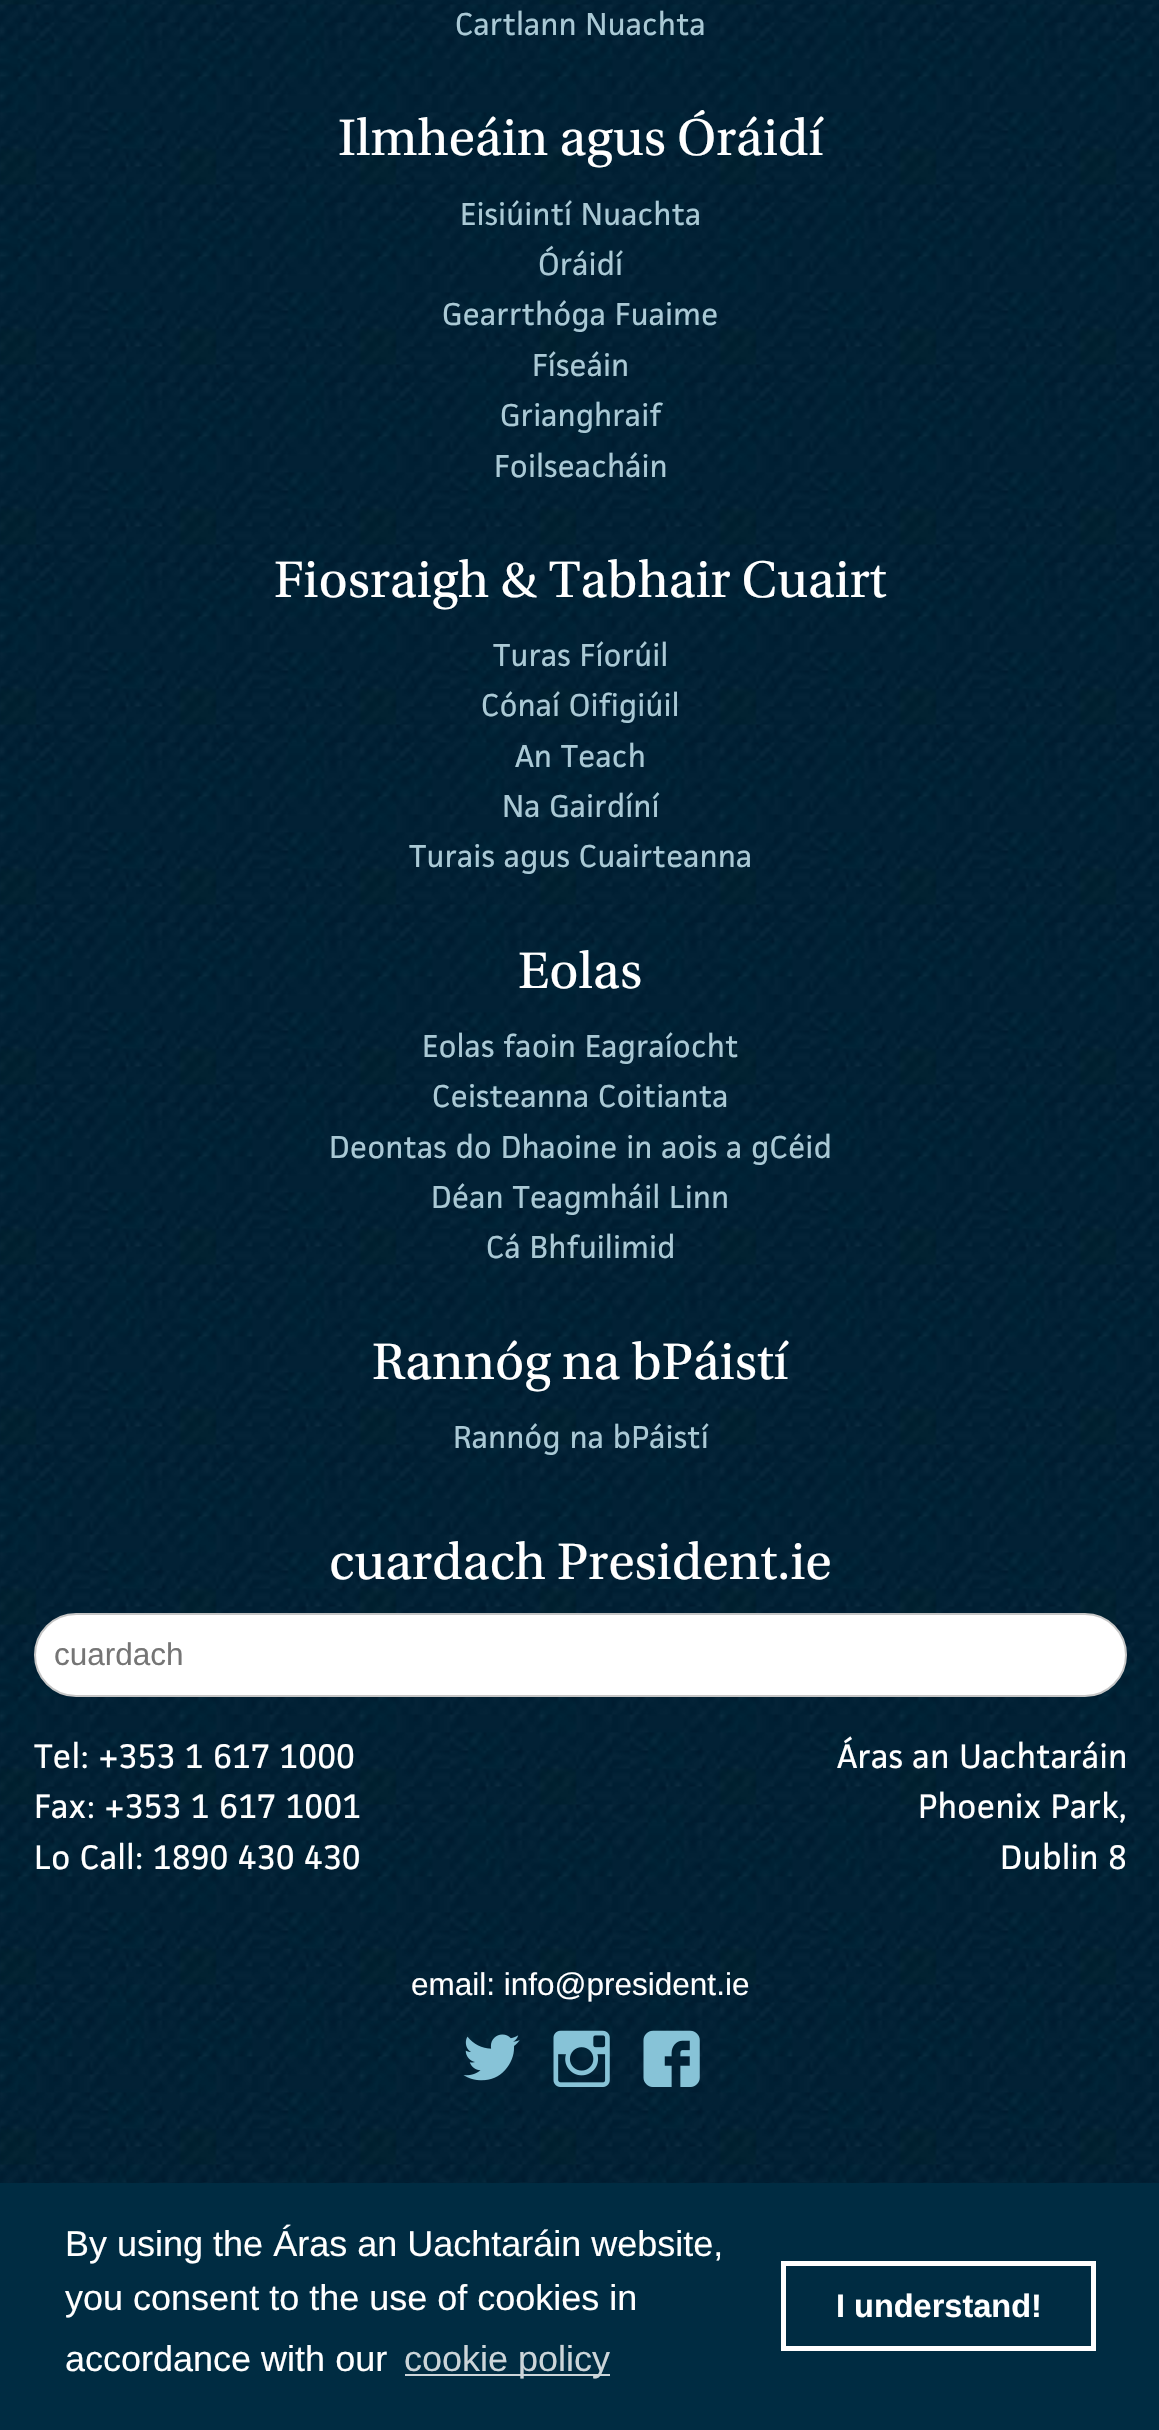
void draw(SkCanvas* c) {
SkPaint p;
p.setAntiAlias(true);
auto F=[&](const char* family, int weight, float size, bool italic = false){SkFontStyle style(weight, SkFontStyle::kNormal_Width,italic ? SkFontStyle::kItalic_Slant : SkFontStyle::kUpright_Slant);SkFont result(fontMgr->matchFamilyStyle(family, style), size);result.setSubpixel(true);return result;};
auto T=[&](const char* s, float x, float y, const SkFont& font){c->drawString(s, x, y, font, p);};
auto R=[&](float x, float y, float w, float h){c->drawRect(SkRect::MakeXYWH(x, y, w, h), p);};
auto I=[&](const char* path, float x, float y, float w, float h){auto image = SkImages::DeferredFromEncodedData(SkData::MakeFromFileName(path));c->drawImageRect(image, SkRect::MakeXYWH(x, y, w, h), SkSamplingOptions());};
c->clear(0xffffffff);
I("1.png",0,0,1159,2183);
auto f1 = F("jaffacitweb",400,29.25);
p.setColor(0xffaac9d5);
T("Cartlann Nuachta",455,35,f1);
auto f2 = F("Utopia",400,54);
p.setColor(0xffffffff);
T("Ilmheáin agus Óráidí",338,155,f2);
p.setColor(0xffaac9d5);
T("Eisiúintí Nuachta",460,225,f1);
T("Óráidí",538,275,f1);
T("Gearrthóga Fuaime",442,325,f1);
T("Físeáin",532,376,f1);
T("Grianghraif",500,426,f1);
T("Foilseacháin",494,477,f1);
p.setColor(0xffffffff);
T("Fiosraigh & Tabhair Cuairt",274,597,f2);
p.setColor(0xffaac9d5);
T("Turas Fíorúil",493,666,f1);
T("Cónaí Oifigiúil",481,716,f1);
T("An Teach",515,767,f1);
T("Na Gairdíní",502,817,f1);
T("Turais agus Cuairteanna",409,867,f1);
p.setColor(0xffffffff);
T("Eolas",518,988,f2);
p.setColor(0xffaac9d5);
T("Eolas faoin Eagraíocht",422,1057,f1);
T("Ceisteanna Coitianta",432,1107,f1);
T("Deontas do Dhaoine in aois a gCéid",329,1158,f1);
T("Déan Teagmháil Linn",431,1208,f1);
T("Cá Bhfuilimid",486,1258,f1);
p.setColor(0xffffffff);
T("Rannóg na bPáistí",372,1379,f2);
p.setColor(0xffaac9d5);
T("Rannóg na bPáistí",453,1448,f1);
p.setColor(0xffffffff);
T("cuardach President.ie",329,1579,f2);
c->drawRoundRect(SkRect::MakeXYWH(35,1614,1091,82),41,41,p);
p.setStroke(true);
p.setStrokeWidth(2);
p.setColor(0xffc6c6c6);
c->drawRoundRect(SkRect::MakeXYWH(35,1614,1091,82),41,41,p);
auto f3 = F("Liberation Sans",400,31.5);
p.setStroke(false);
p.setColor(0xff757575);
T("cuardach",54,1665,f3);
auto f4 = F("jaffacitweb",400,31.5);
p.setColor(0xffffffff);
T("Tel: +353 1 617 1000",34,1768,f4);
T("Fax: +353 1 617 1001",34,1818,f4);
T("Lo Call: 1890 430 430",34,1869,f4);
T("Áras an Uachtaráin",837,1768,f4);
T("Phoenix Park,",918,1818,f4);
T("Dublin 8",1000,1869,f4);
T("email: info@president.ie",411,1995,f3);
I("2.png",463,2034,57,47);
I("3.png",553,2030,57,57);
I("4.png",643,2030,57,57);
p.setColor(0xff002c42);
R(0,2183,1159,247);
auto f5 = F("Liberation Sans",400,36);
p.setColor(0xffffffff);
T("By using the Áras an Uachtaráin website,",65,2256,f5);
T("you consent to the use of cookies in",65,2310,f5);
T("accordance with our",65,2371,f5);
p.setColor(0xffccd5d9);
R(405,2374,205,2);
T("cookie policy",404,2371,f5);
p.setStroke(true);
p.setStrokeWidth(5);
p.setColor(0xffffffff);
c->drawRect(SkRect::MakeXYWH(783.5,2263.5,310,85),p);
auto f6 = F("Liberation Sans",700,32.5);
p.setStroke(false);
T("I understand!",836,2317,f6);
}
